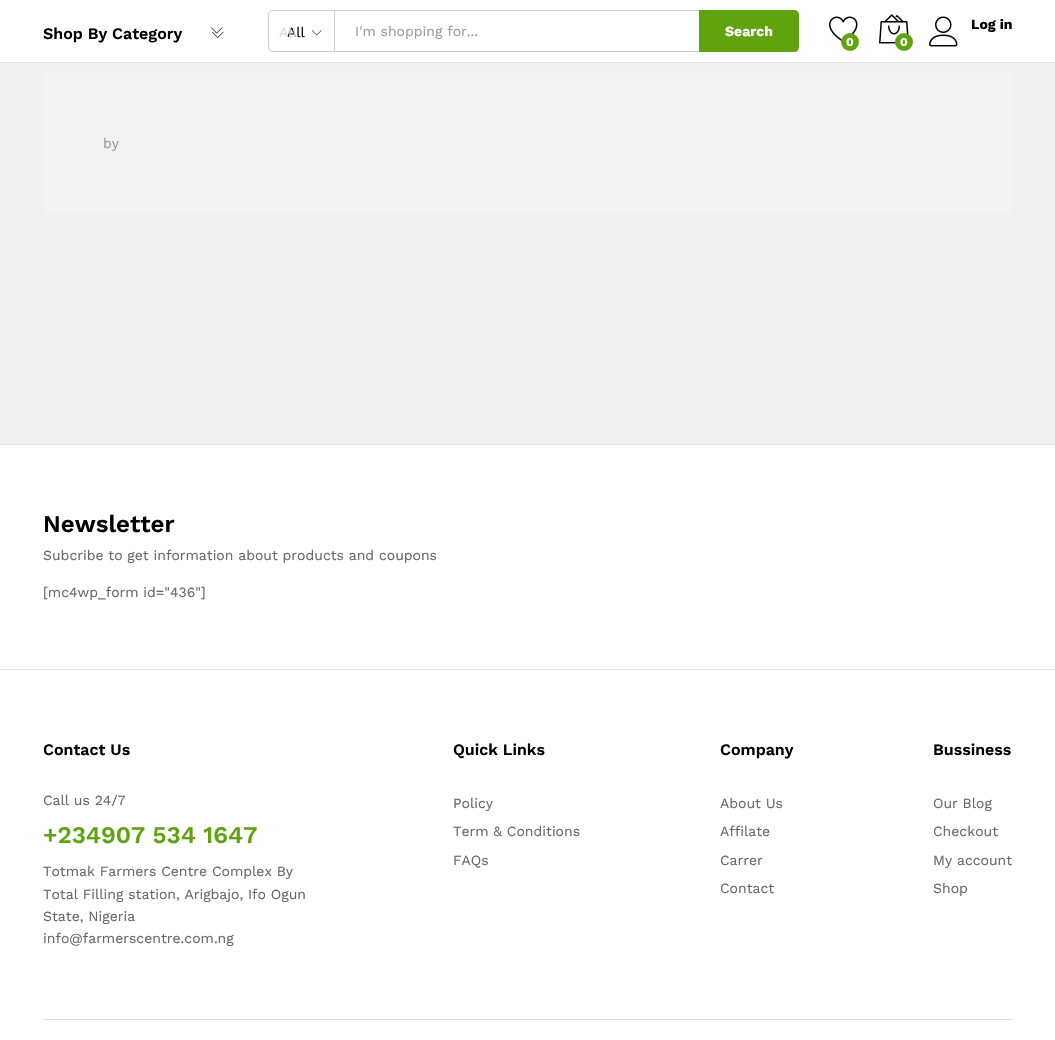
void draw(SkCanvas* c) {
SkPaint p;
p.setAntiAlias(true);
auto F=[&](const char* family, int weight, float size, bool italic = false){SkFontStyle style(weight, SkFontStyle::kNormal_Width,italic ? SkFontStyle::kItalic_Slant : SkFontStyle::kUpright_Slant);SkFont result(fontMgr->matchFamilyStyle(family, style), size);result.setSubpixel(true);return result;};
auto T=[&](const char* s, float x, float y, const SkFont& font){c->drawString(s, x, y, font, p);};
auto R=[&](float x, float y, float w, float h){c->drawRect(SkRect::MakeXYWH(x, y, w, h), p);};
auto I=[&](const char* path, float x, float y, float w, float h){auto image = SkImages::DeferredFromEncodedData(SkData::MakeFromFileName(path));c->drawImageRect(image, SkRect::MakeXYWH(x, y, w, h), SkSamplingOptions());};
auto P=[&](const char* data, bool evenOdd = false){SkPath result = *SkParsePath::FromSVGString(data);if (evenOdd) result.setFillType(SkPathFillType::kEvenOdd);return result;};
c->clear(0xffffffff);
p.setColor(0xffe1e1e1);
R(0,62,1055,1);
auto f1 = F("Work Sans",600,16);
p.setColor(0xff000000);
T("Shop By Category",43,39,f1);
I("1.png",212,32,12,6);
I("2.png",211,27,12,7);
p.setStroke(true);
p.setStrokeWidth(1);
p.setColor(0xffcccccc);
c->drawPath(P("M273 10.5h61.5v41h-61.5c-2.5 0-4.5-2-4.5-4.5v-32c0-2.5 2-4.5 4.5-4.5z"),p);
auto f2 = F("Work Sans",400,14);
p.setStroke(false);
p.setColor(0xff000000);
T("All",287,37,f2);
p.setColor(0xffdbdbdb);
T("All",279,37,f2);
I("3.png",312,30,10,6);
p.setColor(0xffcccccc);
R(335,10,364,1);
R(335,51,364,1);
p.setColor(0xff999999);
T("I'm shopping for...",355,36,f2);
p.setColor(0xff5fa30f);
c->drawPath(P("M699 10h95c3 0 5 2 5 5v32c0 3-2 5-5 5h-95z"),p);
auto f3 = F("Work Sans",700,14);
p.setColor(0xffffffff);
T("Search",725,36,f3);
I("4.png",929,16,29,31);
p.setColor(0xff000000);
T("Log in",971,29,f3);
I("5.png",829,16,29,26);
p.setColor(0xff5fa30f);
c->drawCircle(850,42,9,p);
auto f4 = F("Work Sans",700,12);
p.setColor(0xffffffff);
T("0",846,46,f4);
I("6.png",879,14,30,30);
p.setColor(0xff5fa30f);
c->drawCircle(904,42,9,p);
p.setColor(0xffffffff);
T("0",900,46,f4);
p.setColor(0xffefeef0);
R(0,63,1055,381);
p.setColor(0xfff2f2f2);
R(43,72,970,142);
p.setColor(0xff999999);
T("by",103,148,f2);
p.setColor(0xffe1e1e1);
R(0,444,1055,1);
R(0,669,1055,1);
auto f5 = F("Work Sans",600,24);
p.setColor(0xff000000);
T("Newsletter",43,532,f5);
p.setColor(0xff666666);
T("Subcribe to get information about products and coupons",43,560,f2);
T("[mc4wp_form id=\"436\"]",43,597,f2);
p.setColor(0xff000000);
T("Contact Us",43,755,f1);
p.setColor(0xff666666);
T("Call us 24/7",43,805,f2);
p.setColor(0xff5fa30f);
T("+234907 534 1647",43,843,f5);
p.setColor(0xff666666);
T("Totmak Farmers Centre Complex By",43,876,f2);
T("Total Filling station, Arigbajo, Ifo Ogun",43,899,f2);
T("State, Nigeria",43,921,f2);
T("info@farmerscentre.com.ng",43,943,f2);
p.setColor(0xff000000);
T("Quick Links",453,755,f1);
p.setColor(0xff666666);
T("Policy",453,808,f2);
T("Term & Conditions",453,836,f2);
T("FAQs",453,865,f2);
p.setColor(0xff000000);
T("Company",720,755,f1);
p.setColor(0xff666666);
T("About Us",720,808,f2);
T("Affilate",720,836,f2);
T("Carrer",720,865,f2);
T("Contact",720,893,f2);
p.setColor(0xff000000);
T("Bussiness",933,755,f1);
p.setColor(0xff666666);
T("Our Blog",933,808,f2);
T("Checkout",933,836,f2);
T("My account",933,865,f2);
T("Shop",933,893,f2);
p.setColor(0xffe1e1e1);
R(43,1019,970,1);
}
